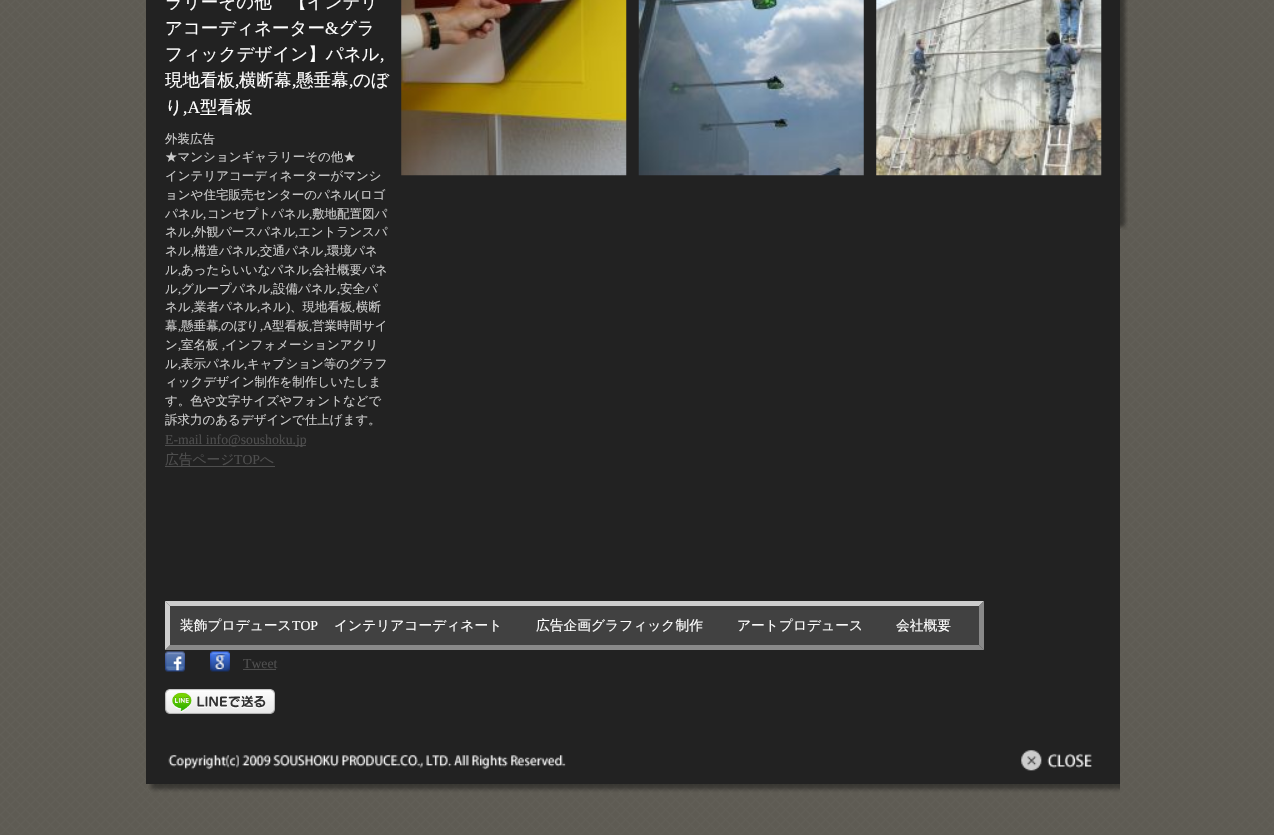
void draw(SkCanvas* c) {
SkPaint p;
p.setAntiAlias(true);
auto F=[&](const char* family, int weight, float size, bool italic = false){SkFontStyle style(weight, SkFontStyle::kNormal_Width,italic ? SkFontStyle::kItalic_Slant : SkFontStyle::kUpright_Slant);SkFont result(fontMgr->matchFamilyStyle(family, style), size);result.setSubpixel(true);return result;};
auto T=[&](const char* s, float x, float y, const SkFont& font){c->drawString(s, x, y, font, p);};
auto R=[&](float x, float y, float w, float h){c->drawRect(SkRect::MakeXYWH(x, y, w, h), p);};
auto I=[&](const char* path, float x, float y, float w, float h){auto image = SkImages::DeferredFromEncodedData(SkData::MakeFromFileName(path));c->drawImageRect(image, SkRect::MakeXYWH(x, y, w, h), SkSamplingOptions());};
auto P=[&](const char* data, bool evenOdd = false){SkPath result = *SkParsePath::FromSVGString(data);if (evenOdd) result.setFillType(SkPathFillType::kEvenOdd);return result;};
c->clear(0xffffffff);
I("1.png",0,0,1274,835);
I("2.png",1120,0,8,230);
I("3.png",148,784,972,9);
p.setColor(0xff222222);
R(146,0,974,784);
auto f1 = F("WenQuanYi Zen Hei",500,17.5);
p.setColor(0xffffffff);
T("ラリーその他　【インテリ",165,8,f1);
T("アコーディネーター",165,34,f1);
auto f2 = F("Liberation Serif",400,17.5);
T("&",325,34,f2);
T("グラ",339,34,f1);
T("フィックデザイン】パネル",165,60,f1);
T(",",380,60,f2);
T("現地看板",165,86,f1);
T(",",235,86,f2);
T("横断幕",239,86,f1);
T(",",292,86,f2);
T("懸垂幕",296,86,f1);
T(",",349,86,f2);
T("のぼ",353,86,f1);
T("り",165,113,f1);
T(",A",183,113,f2);
T("型看板",200,113,f1);
auto f3 = F("WenQuanYi Zen Hei",500,12.5);
p.setColor(0xffcccccc);
T("外装広告",165,143,f3);
T("★マンションギャラリーその他★",165,161,f3);
T("インテリアコーディネーターがマンシ",165,180,f3);
T("ョンや住宅販売センターのパネル",165,199,f3);
auto f4 = F("Liberation Serif",400,12.5);
T("(",355,199,f4);
T("ロゴ",360,199,f3);
T("パネル",165,218,f3);
T(",",203,218,f4);
T("コンセプトパネル",207,218,f3);
T(",",309,218,f4);
T("敷地配置図パ",312,218,f3);
T("ネル",165,236,f3);
T(",",191,236,f4);
T("外観パースパネル",194,236,f3);
T(",",295,236,f4);
T("エントランスパ",298,236,f3);
T("ネル",165,255,f3);
T(",",191,255,f4);
T("構造パネル",194,255,f3);
T(",",257,255,f4);
T("交通パネル",260,255,f3);
T(",",324,255,f4);
T("環境パネ",327,255,f3);
T("ル",165,274,f3);
T(",",178,274,f4);
T("あったらいいなパネル",181,274,f3);
T(",",309,274,f4);
T("会社概要パネ",312,274,f3);
T("ル",165,293,f3);
T(",",178,293,f4);
T("グループパネル",181,293,f3);
T(",",270,293,f4);
T("設備パネル",273,293,f3);
T(",",337,293,f4);
T("安全パ",340,293,f3);
T("ネル",165,311,f3);
T(",",191,311,f4);
T("業者パネル",194,311,f3);
T(",",257,311,f4);
T("ネル",260,311,f3);
T(")",286,311,f4);
T("、現地看板",290,311,f3);
T(",",352,311,f4);
T("横断",356,311,f3);
T("幕",165,330,f3);
T(",",178,330,f4);
T("懸垂幕",181,330,f3);
T(",",218,330,f4);
T("のぼり",221,330,f3);
T(",A",260,330,f4);
T("型看板",272,330,f3);
T(",",309,330,f4);
T("営業時間サイ",312,330,f3);
T("ン",165,349,f3);
T(",",178,349,f4);
T("室名板",181,349,f3);
T(",",222,349,f4);
T("インフォメーションアクリ",225,349,f3);
T("ル",165,368,f3);
T(",",178,368,f4);
T("表示パネル",181,368,f3);
T(",",244,368,f4);
T("キャプション等のグラフ",247,368,f3);
T("ィックデザイン制作を制作しいたしま",165,386,f3);
T("す。色や文字サイズやフォントなどで",165,405,f3);
T("訴求力のあるデザインで仕上げます。",165,424,f3);
p.setColor(0xff4e4e4e);
R(165,445,141,1);
auto f5 = F("Liberation Serif",400,13.75);
T("E-mail info@soushoku.jp",165,444,f5);
auto f6 = F("WenQuanYi Zen Hei",500,13.75);
T("広告ページ",165,464,f6);
T("TOP",234,464,f5);
T("へ",260,464,f6);
R(165,466,110,1);
p.setColor(0xff414141);
R(165,601,819,49);
p.setColor(0xffcecece);
c->drawPath(P("M165 601h819l-5 5h-809z"),p);
p.setColor(0xff898989);
c->drawPath(P("M984 601v49l-5-5v-39z"),p);
c->drawPath(P("M984 650h-819l5-5h809z"),p);
p.setColor(0xffcecece);
c->drawPath(P("M165 650v-49l5 5v39z"),p);
p.setColor(0xffffffff);
T("装飾プロデュース",180,630,f6);
T("TOP",292,630,f5);
T("インテリアコーディネート",334,630,f6);
T("広告企画グラフィック制作",536,630,f6);
T("アートプロデュース",737,630,f6);
T("会社概要",896,630,f6);
I("4.png",165,651,20,21);
I("5.png",210,651,20,21);
p.setColor(0xff4e4e4e);
T("Tweet",243,668,f5);
R(243,669,33,1);
I("6.png",165,689,110,25);
I("7.png",401,0,226,176);
I("8.png",638,0,226,176);
I("9.png",876,0,226,176);
I("10.png",168,755,398,15);
I("11.png",1021,750,71,21);
}
